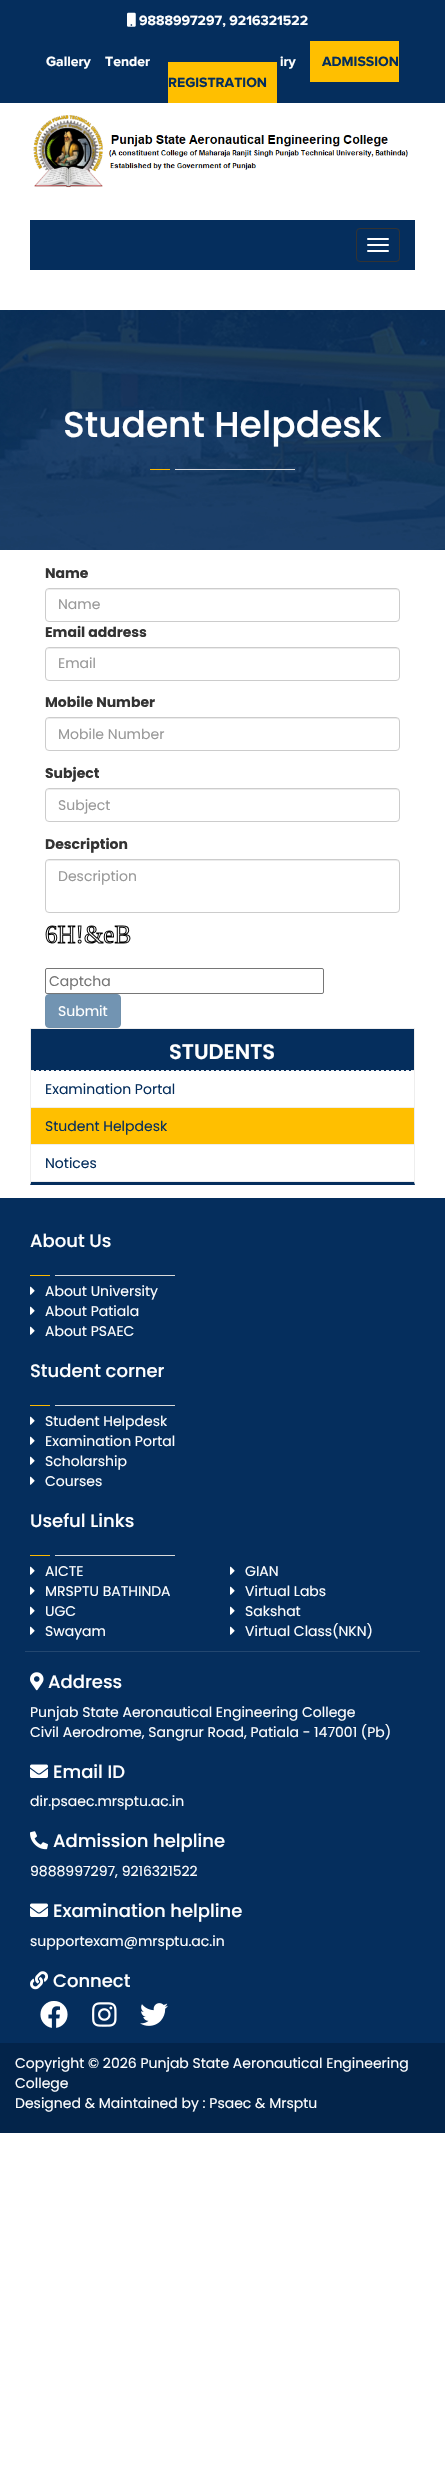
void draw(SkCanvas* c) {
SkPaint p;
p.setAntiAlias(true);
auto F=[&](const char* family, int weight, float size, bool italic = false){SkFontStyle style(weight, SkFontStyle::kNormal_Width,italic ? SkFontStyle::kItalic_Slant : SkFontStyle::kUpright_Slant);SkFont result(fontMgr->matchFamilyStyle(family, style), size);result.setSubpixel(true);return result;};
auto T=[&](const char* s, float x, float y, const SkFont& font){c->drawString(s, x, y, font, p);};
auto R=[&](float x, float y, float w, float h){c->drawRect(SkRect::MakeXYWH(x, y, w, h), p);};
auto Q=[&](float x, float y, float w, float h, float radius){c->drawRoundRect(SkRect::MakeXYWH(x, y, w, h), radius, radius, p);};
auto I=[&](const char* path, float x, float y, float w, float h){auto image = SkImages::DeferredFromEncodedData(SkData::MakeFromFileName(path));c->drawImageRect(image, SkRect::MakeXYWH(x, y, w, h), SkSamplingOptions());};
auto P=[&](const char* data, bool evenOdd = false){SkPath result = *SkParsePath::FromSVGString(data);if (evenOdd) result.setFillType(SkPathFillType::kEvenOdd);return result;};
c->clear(0xffffffff);
p.setColor(0xff052e5d);
R(0,0,445,103);
I("1.png",127,12,9,15);
auto f1 = F("Proxima Nova",700,14);
p.setColor(0xffffffff);
T("9888997297, 9216321522",139,25,f1);
T("Gallery",46,66,f1);
T("Tender",105,66,f1);
T("iry",280,66,f1);
p.setColor(0xffffbf00);
R(310,41,89,41);
p.setColor(0xff052e5d);
T("ADMISSION",322,66,f1);
p.setColor(0xffffbf00);
R(168,62,109,41);
p.setColor(0xff052e5d);
T("REGISTRATION",168,87,f1);
I("2.png",33,115,375,73);
R(30,220,385,50);
p.setStroke(true);
p.setStrokeWidth(1);
p.setColor(0xff333333);
c->drawRoundRect(SkRect::MakeXYWH(356.5,228.5,43,33),3.5,3.5,p);
p.setStroke(false);
p.setColor(0xffffffff);
Q(367,238,22,2,1);
Q(367,244,22,2,1);
Q(367,250,22,2,1);
I("3.png",0,310,445,240);
auto f2 = F("Poppins",500,36);
T("Student Helpdesk",63,437,f2);
p.setColor(0xffdadada);
R(175,469,120,1);
p.setColor(0xfffdb801);
R(150,469,20,1);
auto f3 = F("Poppins",700,14);
p.setColor(0xff333333);
T("Name",45,578,f3);
p.setColor(0xffececec);
c->drawPath(P("M49 590h347c2 0 3 1 3 3c0-2-1-4-3-4h-347l-2 1l-1 3c0-2 1-3 3-3z"),p);
p.setStroke(true);
p.setColor(0xffcccccc);
c->drawRoundRect(SkRect::MakeXYWH(45.5,588.5,354,33),3.5,3.5,p);
auto f4 = F("Poppins",400,14);
p.setStroke(false);
p.setColor(0xff999999);
T("Name",58,609,f4);
p.setColor(0xff333333);
T("Email address",45,637,f3);
p.setColor(0xffececec);
c->drawPath(P("M49 649h347c2 0 3 1 3 3c0-2-1-4-3-4h-347l-2 1l-1 3c0-2 1-3 3-3z"),p);
p.setStroke(true);
p.setColor(0xffcccccc);
c->drawRoundRect(SkRect::MakeXYWH(45.5,647.5,354,33),3.5,3.5,p);
p.setStroke(false);
p.setColor(0xff999999);
T("Email",58,668,f4);
p.setColor(0xff333333);
T("Mobile Number",45,707,f3);
p.setColor(0xffececec);
c->drawPath(P("M49 719h347c2 0 3 1 3 3c0-2-1-4-3-4h-347l-2 1l-1 3c0-2 1-3 3-3z"),p);
p.setStroke(true);
p.setColor(0xffcccccc);
c->drawRoundRect(SkRect::MakeXYWH(45.5,717.5,354,33),3.5,3.5,p);
p.setStroke(false);
p.setColor(0xff999999);
T("Mobile Number",58,739,f4);
p.setColor(0xff333333);
T("Subject",45,778,f3);
p.setColor(0xffececec);
c->drawPath(P("M49 790h347c2 0 3 1 3 3c0-2-1-4-3-4h-347l-2 1l-1 3c0-2 1-3 3-3z"),p);
p.setStroke(true);
p.setColor(0xffcccccc);
c->drawRoundRect(SkRect::MakeXYWH(45.5,788.5,354,33),3.5,3.5,p);
p.setStroke(false);
p.setColor(0xff999999);
T("Subject",58,810,f4);
p.setColor(0xff333333);
T("Description",45,849,f3);
p.setColor(0xffececec);
c->drawPath(P("M49 861h347c2 0 3 1 3 3c0-2-1-4-3-4h-347l-2 1l-1 3c0-2 1-3 3-3z"),p);
p.setStroke(true);
p.setColor(0xffcccccc);
c->drawRoundRect(SkRect::MakeXYWH(45.5,859.5,354,53),3.5,3.5,p);
p.setStroke(false);
p.setColor(0xff999999);
T("Description",58,881,f4);
I("4.png",45,925,86,19);
p.setStroke(true);
p.setColor(0xff767676);
c->drawRoundRect(SkRect::MakeXYWH(45.5,968.5,278,25),1.5,1.5,p);
p.setStroke(false);
p.setColor(0xff757575);
T("Captcha",49,986,f4);
p.setColor(0xff7294b2);
c->drawRoundRect(SkRect::MakeXYWH(45.5,994.5,75,33),3.5,3.5,p);
p.setStroke(true);
p.setColor(0xff7191ac);
c->drawRoundRect(SkRect::MakeXYWH(45.5,994.5,75,33),3.5,3.5,p);
p.setStroke(false);
p.setColor(0xffffffff);
T("Submit",58,1016,f4);
p.setColor(0xffeeeeee);
R(30,1028,385,1);
c->drawPath(P("M415 1028v157l-1-3v-153z"),p);
p.setColor(0xff052e5d);
c->drawPath(P("M415 1185h-385l1-3h383z"),p);
p.setColor(0xffeeeeee);
c->drawPath(P("M30 1185v-157l1 1v153z"),p);
p.setColor(0xff052e5d);
R(31,1029,383,42);
p.setStroke(true);
p.setColor(0xffeeeeee);
p.setPathEffect(SkDashPathEffect::Make({{3,2}}, 0));
c->drawPath(P("M31 1070.5h383"),p);
p.setPathEffect(nullptr);
auto f5 = F("Poppins",600,21);
p.setStroke(false);
p.setColor(0xffffffff);
T("STUDENTS",169,1059,f5);
p.setColor(0xffeeeeee);
R(31,1107,383,1);
p.setColor(0xff052e5d);
T("Examination Portal",45,1094,f4);
p.setColor(0xffffbf00);
R(31,1108,383,36);
p.setColor(0xffeeeeee);
R(31,1144,383,1);
p.setColor(0xff052e5d);
T("Student Helpdesk",45,1131,f4);
p.setColor(0xffeeeeee);
R(31,1181,383,1);
p.setColor(0xff052e5d);
T("Notices",45,1168,f4);
R(0,1198,445,845);
auto f6 = F("Poppins",500,18);
p.setColor(0xffffffff);
T("About Us",30,1247,f6);
p.setColor(0xffdadada);
R(55,1275,120,1);
p.setColor(0xfffdb801);
R(30,1275,20,1);
I("5.png",30,1286,5,9);
p.setColor(0xffffffff);
T("About University",45,1296,f4);
I("5.png",30,1306,5,9);
T("About Patiala",45,1316,f4);
I("5.png",30,1326,5,9);
T("About PSAEC",45,1336,f4);
T("Student corner",30,1377,f6);
p.setColor(0xffdadada);
R(55,1405,120,1);
p.setColor(0xfffdb801);
R(30,1405,20,1);
I("5.png",30,1416,5,9);
p.setColor(0xffffffff);
T("Student Helpdesk",45,1426,f4);
I("5.png",30,1436,5,9);
T("Examination Portal",45,1446,f4);
I("5.png",30,1456,5,9);
T("Scholarship",45,1466,f4);
I("5.png",30,1476,5,9);
T("Courses",45,1486,f4);
T("Useful Links",30,1527,f6);
p.setColor(0xffdadada);
R(55,1555,120,1);
p.setColor(0xfffdb801);
R(30,1555,20,1);
I("5.png",30,1566,5,9);
p.setColor(0xffffffff);
T("AICTE",45,1576,f4);
I("5.png",230,1566,5,9);
T("GIAN",245,1576,f4);
I("5.png",30,1586,5,9);
T("MRSPTU BATHINDA",45,1596,f4);
I("5.png",230,1586,5,9);
T("Virtual Labs",245,1596,f4);
I("5.png",30,1606,5,9);
T("UGC",45,1616,f4);
I("5.png",230,1606,5,9);
T("Sakshat",245,1616,f4);
I("5.png",30,1626,5,9);
T("Swayam",45,1636,f4);
I("5.png",230,1626,5,9);
T("Virtual Class(NKN)",245,1636,f4);
p.setColor(0xff234770);
R(25,1651,395,1);
I("6.png",30,1672,14,19);
p.setColor(0xffffffff);
T("Address",48,1688,f6);
T("Punjab State Aeronautical Engineering College",30,1717,f4);
T("Civil Aerodrome, Sangrur Road, Patiala - 147001 (Pb)",30,1737,f4);
I("7.png",30,1764,18,14);
T("Email ID",53,1778,f6);
T("dir.psaec.mrsptu.ac.in",30,1806,f4);
I("8.png",30,1831,18,19);
T("Admission helpline",53,1847,f6);
T("9888997297, 9216321522",30,1876,f4);
I("7.png",30,1903,18,14);
T("Examination helpline",53,1917,f6);
T("supportexam@mrsptu.ac.in",30,1946,f4);
I("9.png",30,1971,18,19);
T("Connect",53,1987,f6);
I("10.png",40,2001,28,27);
I("11.png",92,2002,25,25);
I("12.png",140,2003,28,23);
p.setColor(0xff03244a);
R(0,2043,445,90);
p.setColor(0xffffffff);
T("Copyright © 2026 Punjab State Aeronautical Engineering",15,2068,f4);
T("College",15,2088,f4);
T("Designed & Maintained by : Psaec & Mrsptu",15,2108,f4);
}
